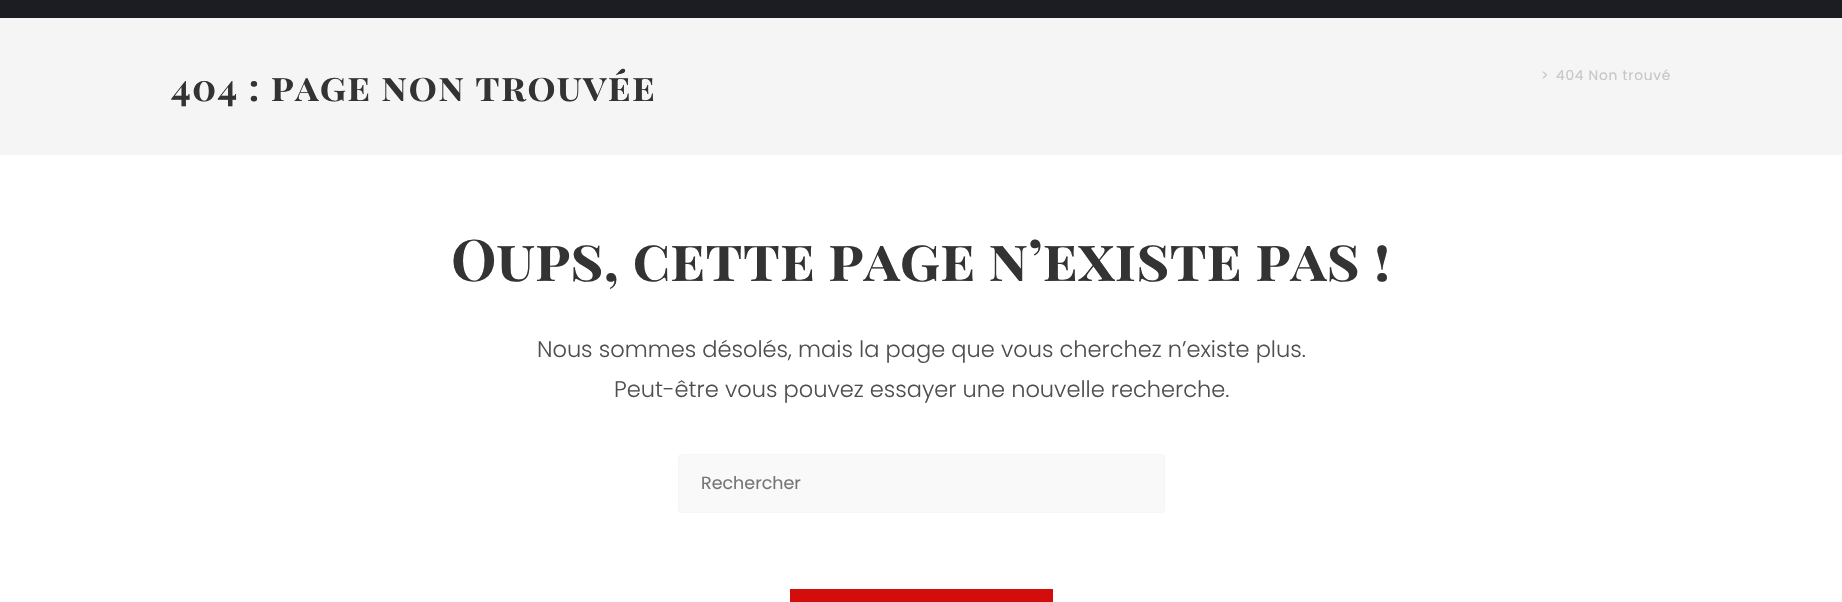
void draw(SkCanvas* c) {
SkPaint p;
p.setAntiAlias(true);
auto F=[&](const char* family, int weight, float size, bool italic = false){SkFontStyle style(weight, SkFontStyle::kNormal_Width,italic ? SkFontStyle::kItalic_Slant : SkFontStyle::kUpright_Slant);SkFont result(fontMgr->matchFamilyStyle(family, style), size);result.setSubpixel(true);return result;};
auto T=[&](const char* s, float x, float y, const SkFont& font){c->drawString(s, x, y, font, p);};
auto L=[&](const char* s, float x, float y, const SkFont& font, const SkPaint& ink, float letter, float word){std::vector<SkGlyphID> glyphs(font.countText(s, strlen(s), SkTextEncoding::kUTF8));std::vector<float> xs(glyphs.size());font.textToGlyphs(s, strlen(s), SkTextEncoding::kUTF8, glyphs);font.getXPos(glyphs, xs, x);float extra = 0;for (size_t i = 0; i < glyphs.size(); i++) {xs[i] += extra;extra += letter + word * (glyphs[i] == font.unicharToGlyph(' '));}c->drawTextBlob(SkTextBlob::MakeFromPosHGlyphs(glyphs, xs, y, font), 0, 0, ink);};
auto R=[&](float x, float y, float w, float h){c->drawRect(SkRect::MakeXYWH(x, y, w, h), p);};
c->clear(0xffffffff);
p.setColor(0xff1c1c23);
R(0,0,1842,18);
p.setColor(0xfff5f5f5);
R(0,18,1842,137);
auto f1 = F("Playfair Display SC",700,37.5);
p.setColor(0xff333333);
L("404 : page non trouvée",171,101,f1,p,1.25,0);
auto f2 = F("Poppins",400,13.75);
p.setColor(0xffc6c6c6);
L(">",1541,80,f2,p,.75,0);
L("404 Non trouvé",1556,80,f2,p,.75,0);
auto f3 = F("Playfair Display SC",700,57.5);
p.setColor(0xff333333);
T("Oups, cette page n’existe pas !",451,281,f3);
auto f4 = F("Poppins",300,22.5);
p.setColor(0xff4f4f4f);
T("Nous sommes désolés, mais la page que vous cherchez n’existe plus.",537,357,f4);
T("Peut-être vous pouvez essayer une nouvelle recherche.",614,397,f4);
p.setColor(0xfff9f9f9);
c->drawRoundRect(SkRect::MakeXYWH(678.5,454.5,486,58),3.5,3.5,p);
p.setStroke(true);
p.setStrokeWidth(1);
p.setColor(0xfff5f5f5);
c->drawRoundRect(SkRect::MakeXYWH(678.5,454.5,486,58),3.5,3.5,p);
auto f5 = F("Poppins",400,17.5);
p.setStroke(false);
p.setColor(0xff757575);
T("Rechercher",701,489,f5);
p.setColor(0xffd30d0d);
R(790,589,263,13);
}
